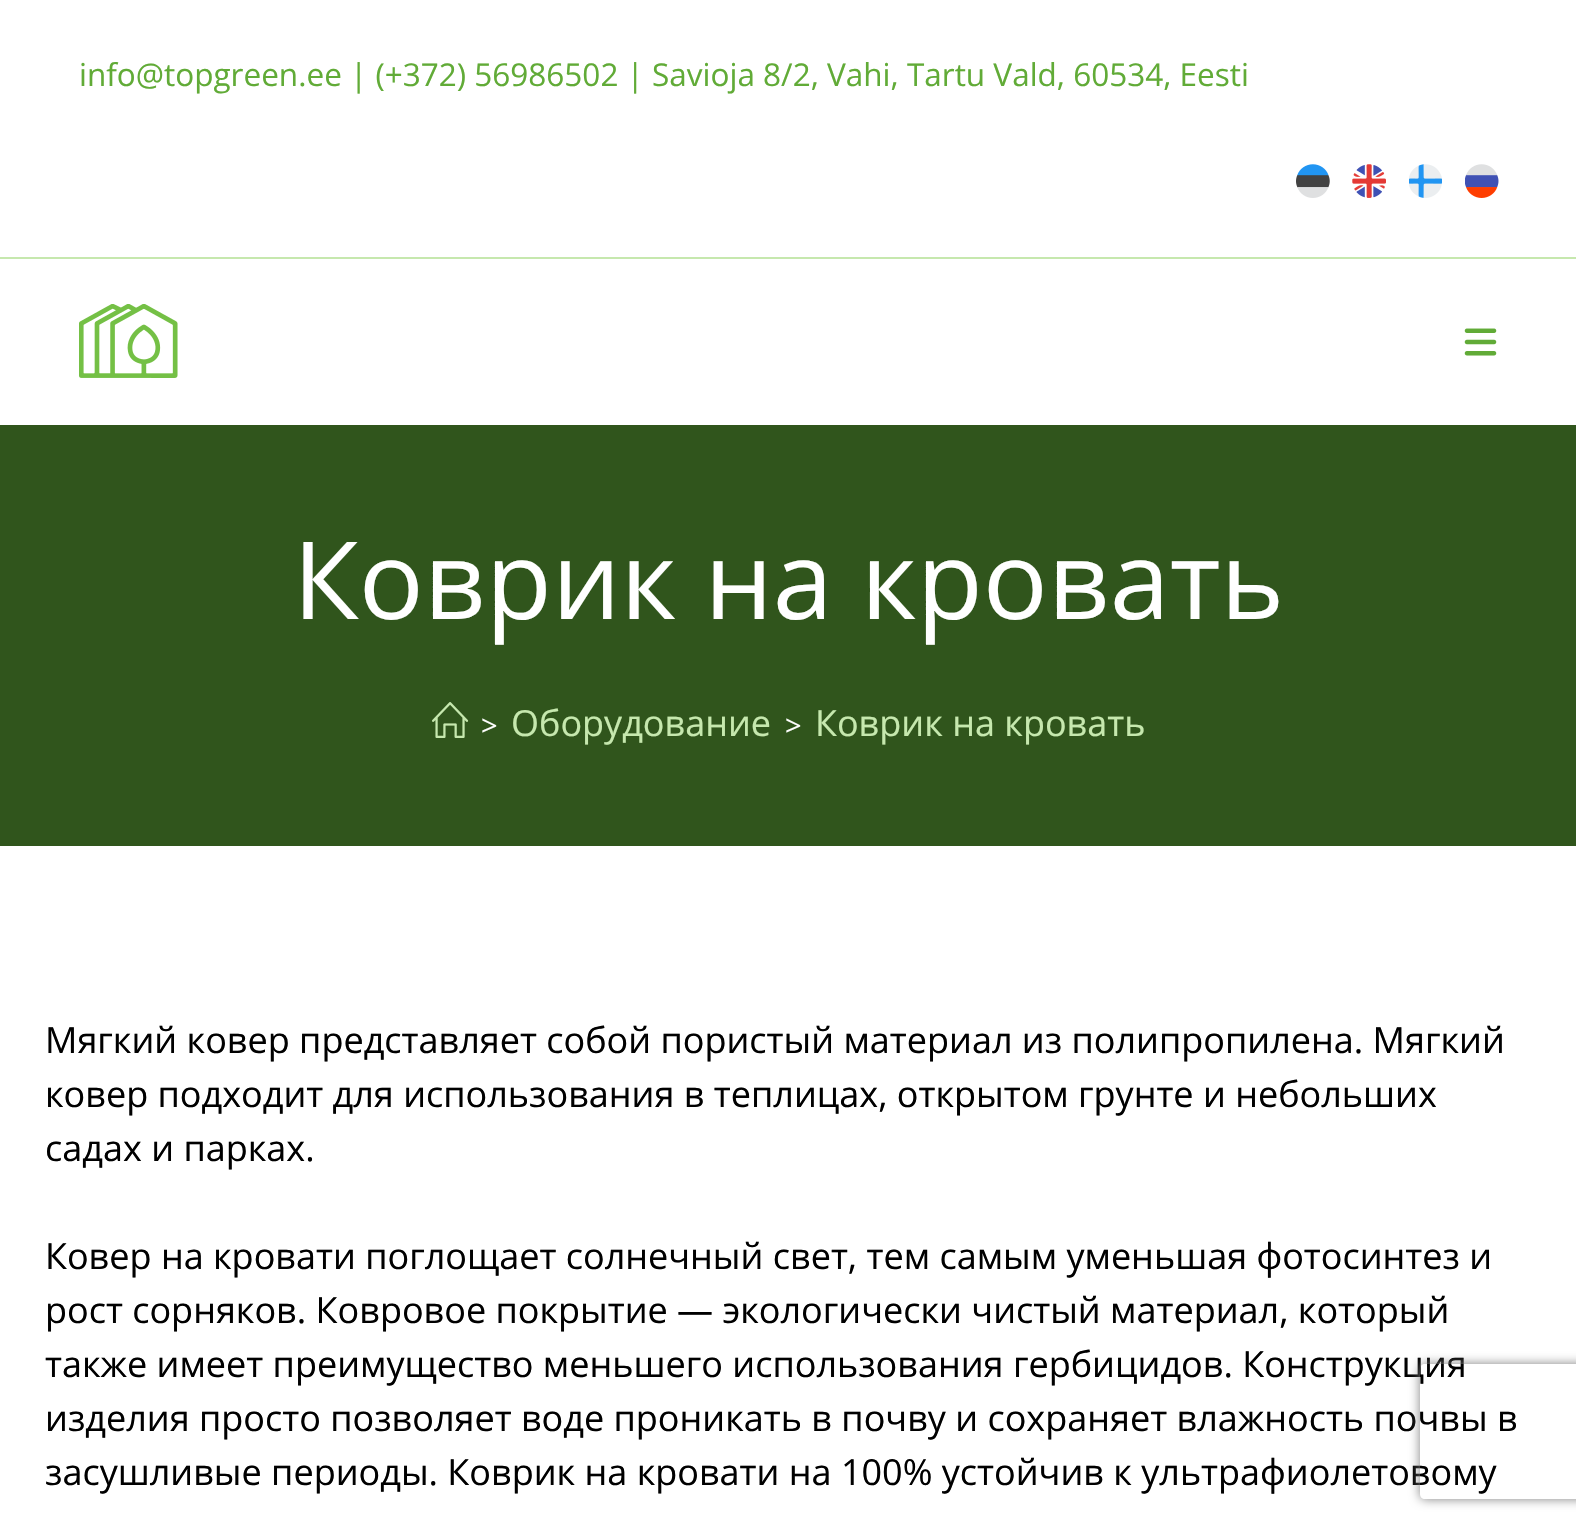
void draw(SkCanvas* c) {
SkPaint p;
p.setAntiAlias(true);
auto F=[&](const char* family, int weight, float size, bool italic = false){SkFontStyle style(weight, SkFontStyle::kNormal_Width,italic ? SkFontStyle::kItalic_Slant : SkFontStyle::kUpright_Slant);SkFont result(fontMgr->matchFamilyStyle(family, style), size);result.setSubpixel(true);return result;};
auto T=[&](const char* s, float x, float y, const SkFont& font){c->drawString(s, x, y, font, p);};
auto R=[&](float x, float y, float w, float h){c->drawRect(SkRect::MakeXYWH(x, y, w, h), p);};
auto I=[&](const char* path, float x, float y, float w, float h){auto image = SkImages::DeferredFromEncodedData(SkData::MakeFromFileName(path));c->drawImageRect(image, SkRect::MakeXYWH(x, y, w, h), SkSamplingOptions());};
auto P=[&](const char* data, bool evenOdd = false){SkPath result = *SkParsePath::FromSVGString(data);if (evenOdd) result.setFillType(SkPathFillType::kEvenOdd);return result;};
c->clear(0xffffffff);
p.setColor(0xffc6e8ae);
R(0,257,1576,2);
auto f1 = F("Open Sans",400,31.5);
p.setColor(0xff61ab37);
T("info@topgreen.ee | (+372) 56986502 | Savioja 8/2, Vahi, Tartu Vald, 60534, Eesti",79,86,f1);
I("1.png",1296,164,34,34);
I("2.png",1352,164,34,34);
I("3.png",1409,164,33,34);
I("4.png",1465,164,34,34);
I("5.png",79,304,99,74);
I("6.png",1464,328,33,28);
p.setColor(0xff30551c);
R(0,425,1576,421);
auto f2 = F("Open Sans",400,108);
p.setColor(0xffffffff);
T("Коврик на кровать",293,619,f2);
I("7.png",432,702,37,36);
auto f3 = F("Open Sans",400,29);
T(">",481,736,f3);
auto f4 = F("Open Sans",400,36);
p.setColor(0xffc6e8ae);
T("Оборудование",511,736,f4);
p.setColor(0xffffffff);
T(">",785,736,f3);
p.setColor(0xffc6e8ae);
T("Коврик на кровать",815,736,f4);
p.setColor(0xff000000);
T("Мягкий ковер представляет собой пористый материал из полипропилена. Мягкий",45,1053,f4);
T("ковер подходит для использования в теплицах, открытом грунте и небольших",45,1107,f4);
T("садах и парках.",45,1161,f4);
T("Ковер на кровати поглощает солнечный свет, тем самым уменьшая фотосинтез и",45,1269,f4);
T("рост сорняков. Ковровое покрытие — экологически чистый материал, который",45,1323,f4);
T("также имеет преимущество меньшего использования гербицидов. Конструкция",45,1377,f4);
T("изделия просто позволяет воде проникать в почву и сохраняет влажность почвы в",45,1431,f4);
T("засушливые периоды. Коврик на кровати на 100% устойчив к ультрафиолетовому",45,1485,f4);
c->save();
c->clipPath(P("M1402 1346h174v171h-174zm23 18h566c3 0 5 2 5 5v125c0 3-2 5-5 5h-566c-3 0-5-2-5-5v-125c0-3 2-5 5-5z",true),true);
p.setColor(0xff808080);
p.setMaskFilter(SkMaskFilter::MakeBlur(kNormal_SkBlurStyle, 5.5));
c->drawRoundRect(SkRect::MakeXYWH(1420,1364,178,135),5,5,p);
p.setMaskFilter(nullptr);
c->restore();
}
